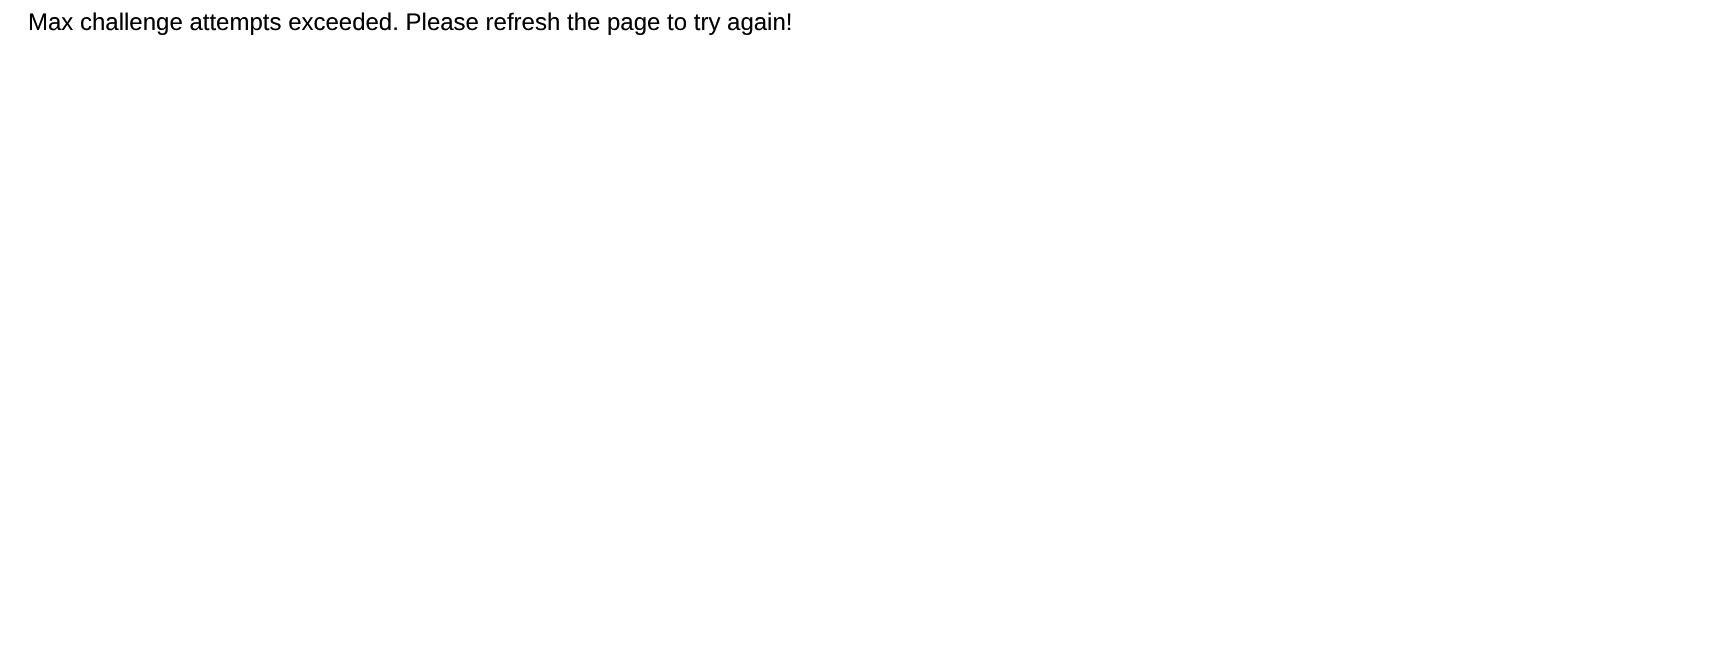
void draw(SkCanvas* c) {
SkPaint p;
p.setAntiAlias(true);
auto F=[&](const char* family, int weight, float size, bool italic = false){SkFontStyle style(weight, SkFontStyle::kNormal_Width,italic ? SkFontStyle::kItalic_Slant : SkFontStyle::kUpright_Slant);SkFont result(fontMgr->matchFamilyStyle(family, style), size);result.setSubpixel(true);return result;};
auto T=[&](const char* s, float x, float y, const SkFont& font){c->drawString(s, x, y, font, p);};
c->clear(0xffffffff);
auto f1 = F("Liberation Sans",400,24);
p.setColor(0xff000000);
T("Max challenge attempts exceeded. Please refresh the page to try again!",28,30,f1);
}
